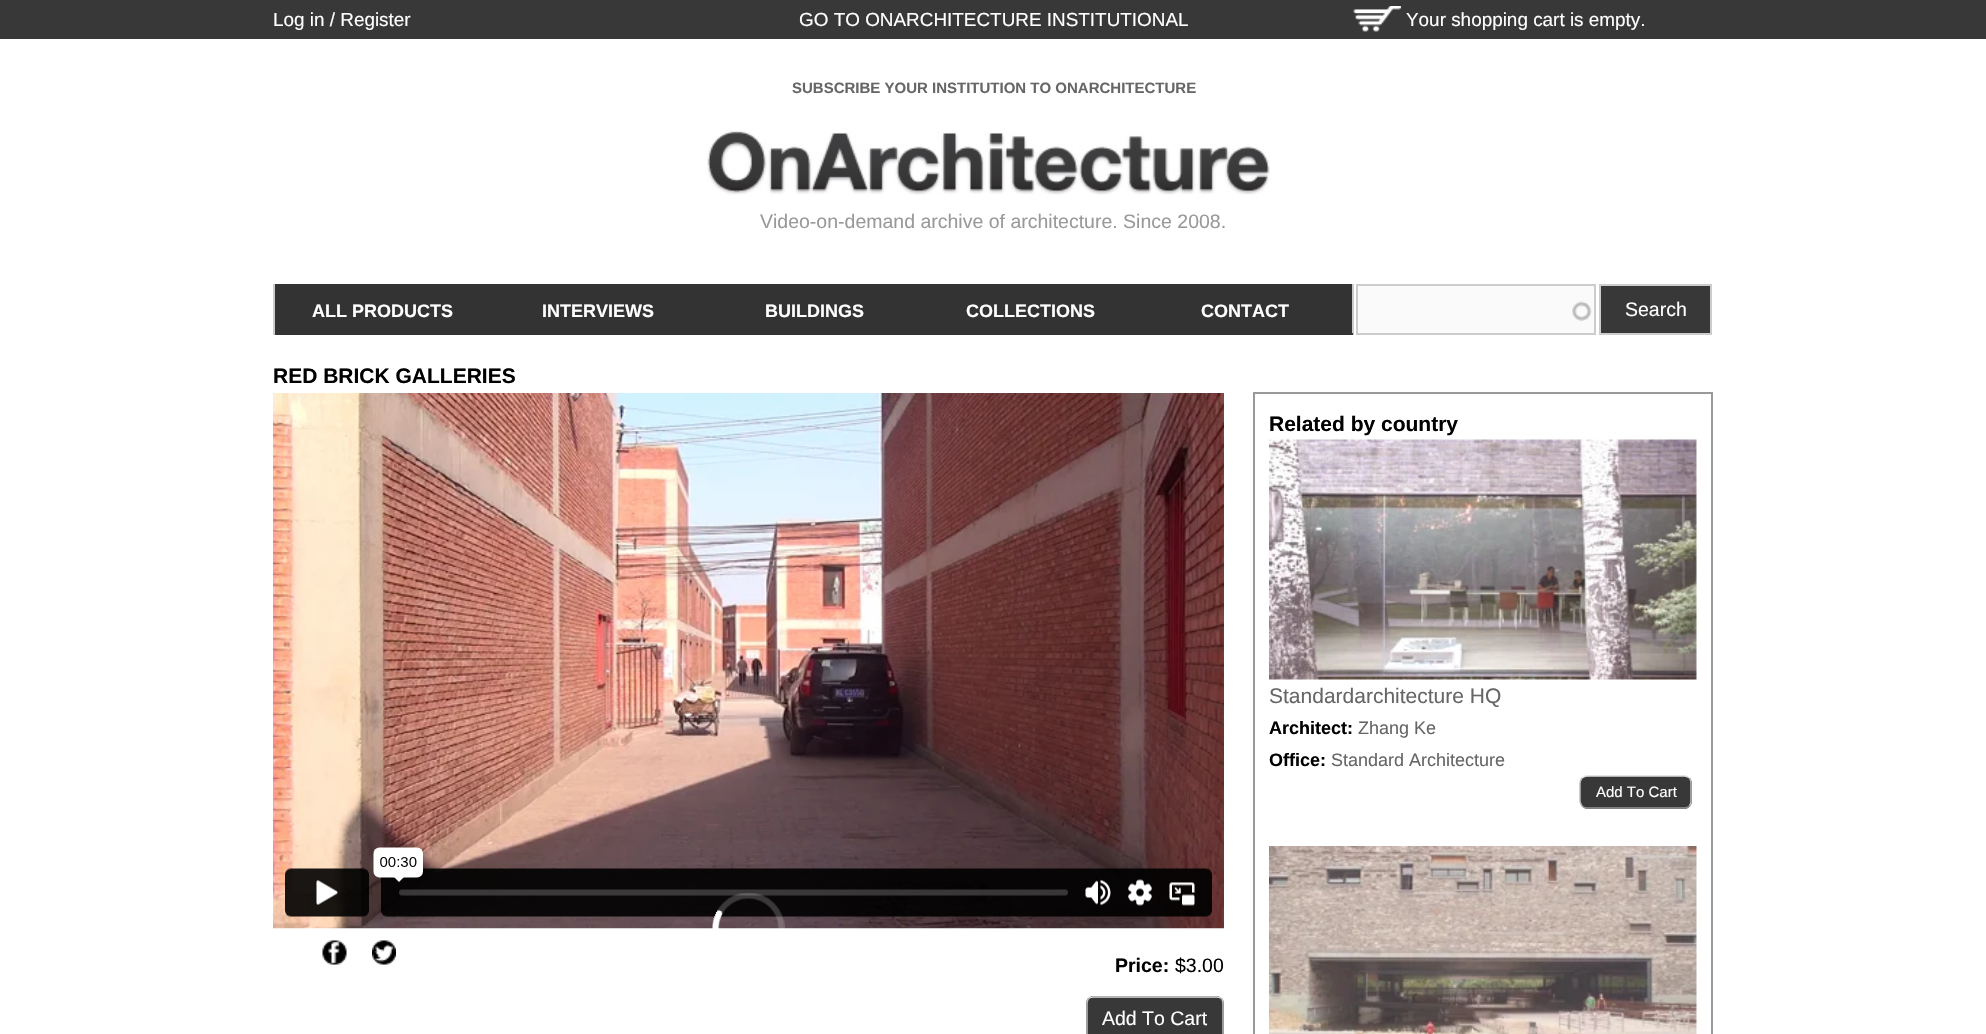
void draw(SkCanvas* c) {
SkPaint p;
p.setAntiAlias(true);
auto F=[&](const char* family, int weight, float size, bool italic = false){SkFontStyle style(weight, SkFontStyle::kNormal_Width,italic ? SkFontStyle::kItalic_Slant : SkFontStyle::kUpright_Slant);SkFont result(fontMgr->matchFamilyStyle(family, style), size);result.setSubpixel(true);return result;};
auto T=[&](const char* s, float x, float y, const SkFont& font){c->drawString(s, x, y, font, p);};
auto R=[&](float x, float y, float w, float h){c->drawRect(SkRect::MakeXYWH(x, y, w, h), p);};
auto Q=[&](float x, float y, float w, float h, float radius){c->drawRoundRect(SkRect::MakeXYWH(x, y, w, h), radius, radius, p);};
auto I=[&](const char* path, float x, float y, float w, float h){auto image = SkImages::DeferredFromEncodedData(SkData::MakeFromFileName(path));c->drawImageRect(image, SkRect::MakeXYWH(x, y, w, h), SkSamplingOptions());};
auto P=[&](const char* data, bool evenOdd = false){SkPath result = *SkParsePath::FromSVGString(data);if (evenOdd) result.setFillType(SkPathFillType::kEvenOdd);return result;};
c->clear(0xffffffff);
p.setColor(0xff383838);
R(0,0,1986,39);
auto f1 = F("Liberation Sans",400,18.9);
p.setColor(0xffffffff);
T("Log in / Register",273,26,f1);
T("GO TO ONARCHITECTURE INSTITUTIONAL",799,26,f1);
I("1.png",1353,6,48,26);
T("Your shopping cart is empty.",1406,26,f1);
auto f2 = F("Liberation Sans",700,15);
p.setColor(0xff666666);
T("SUBSCRIBE YOUR INSTITUTION TO ONARCHITECTURE",792,93,f2);
I("2.png",707,131,563,64);
auto f3 = F("Liberation Sans",400,19.5);
p.setColor(0xff999999);
T("Video-on-demand archive of architecture. Since 2008.",760,228,f3);
p.setColor(0xff333333);
R(275,286,1077,47);
R(273,284,1080,2);
R(273,333,866,2);
p.setColor(0xffcccccc);
R(273,284,2,51);
auto f4 = F("Liberation Sans",700,18);
p.setColor(0xffffffff);
T("ALL PRODUCTS",312,317,f4);
T("INTERVIEWS",542,317,f4);
T("BUILDINGS",765,317,f4);
T("COLLECTIONS",966,317,f4);
p.setColor(0xffcccccc);
R(1352,284,2,51);
p.setColor(0xff333333);
R(1139,333,214,2);
p.setColor(0xffffffff);
T("CONTACT",1201,317,f4);
p.setColor(0xfffbfafa);
R(1358,286,236,47);
I("3.png",1572,301,20,20);
p.setStroke(true);
p.setStrokeWidth(2);
p.setColor(0xffcccccc);
c->drawRect(SkRect::MakeXYWH(1357,285,238,49),p);
p.setStroke(false);
p.setColor(0xff383838);
c->drawRect(SkRect::MakeXYWH(1600,285,111,49),p);
p.setStroke(true);
p.setColor(0xffcccccc);
c->drawRect(SkRect::MakeXYWH(1600,285,111,49),p);
p.setStroke(false);
p.setColor(0xffffffff);
T("Search",1625,316,f3);
auto f5 = F("Liberation Sans",700,21);
p.setColor(0xff000000);
T("RED BRICK GALLERIES",273,383,f5);
p.setStroke(true);
p.setColor(0xff999999);
c->drawRect(SkRect::MakeXYWH(1254,393,458,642),p);
p.setStroke(false);
p.setColor(0xff000000);
T("Related by country",1269,431,f5);
I("4.png",1269,439,428,241);
auto f6 = F("Liberation Sans",400,21);
p.setColor(0xff666666);
T("Standardarchitecture HQ",1269,703,f6);
p.setColor(0xff000000);
T("Architect:",1269,734,f4);
auto f7 = F("Liberation Sans",400,18);
p.setColor(0xff666666);
T("Zhang Ke",1358,734,f7);
p.setColor(0xff000000);
T("Office:",1269,766,f4);
p.setColor(0xff666666);
T("Standard Architecture",1331,766,f7);
p.setColor(0xff383838);
Q(1580,776,112,33,8);
p.setStroke(true);
p.setStrokeWidth(1.5);
p.setColor(0xffdddddd);
c->drawPath(P("M1582 778c1.5-1 3-2 5-2h97.5c2 0 3.5 1 5 2"),p);
p.setColor(0xffbbbbbb);
c->drawPath(P("M1689.5 778c1 1.5 1.5 3 1.5 5v18c0 2-.5 3.5-1.5 5"),p);
p.setColor(0xff999999);
c->drawPath(P("M1689.5 806c-1.5 1-3 2-5 2h-97.5c-2 0-3.5-1-5-2"),p);
p.setColor(0xffbbbbbb);
c->drawPath(P("M1582 806c-1-1.5-2-3-2-5v-18c0-2 1-3.5 2-5"),p);
auto f8 = F("Liberation Sans",400,15);
p.setStroke(false);
p.setColor(0xffffffff);
T("Add To Cart",1596,797,f8);
I("5.png",1269,846,428,188);
I("6.png",273,393,951,536);
I("7.png",322,940,25,25);
I("8.png",372,940,24,25);
auto f9 = F("Liberation Sans",700,19.5);
p.setColor(0xff000000);
T("Price:",1115,972,f9);
T("$3.00",1175,972,f3);
p.setColor(0xff383838);
Q(1086,996,138,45,8);
p.setStroke(true);
p.setColor(0xffdddddd);
c->drawPath(P("M1088.5 998.5c1.5-1 3-1.5 5-1.5h123c2 0 3.5 .5 5 1.5"),p);
p.setColor(0xffbbbbbb);
c->drawPath(P("M1221.5 998.5c1 1.5 1.5 3 1.5 5v30c0 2-.5 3.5-1.5 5"),p);
c->drawPath(P("M1088.5 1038.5c-1-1.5-1.5-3-1.5-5v-30c0-2 .5-3.5 1.5-5"),p);
p.setStroke(false);
p.setColor(0xffffffff);
T("Add To Cart",1102,1025,f3);
}
